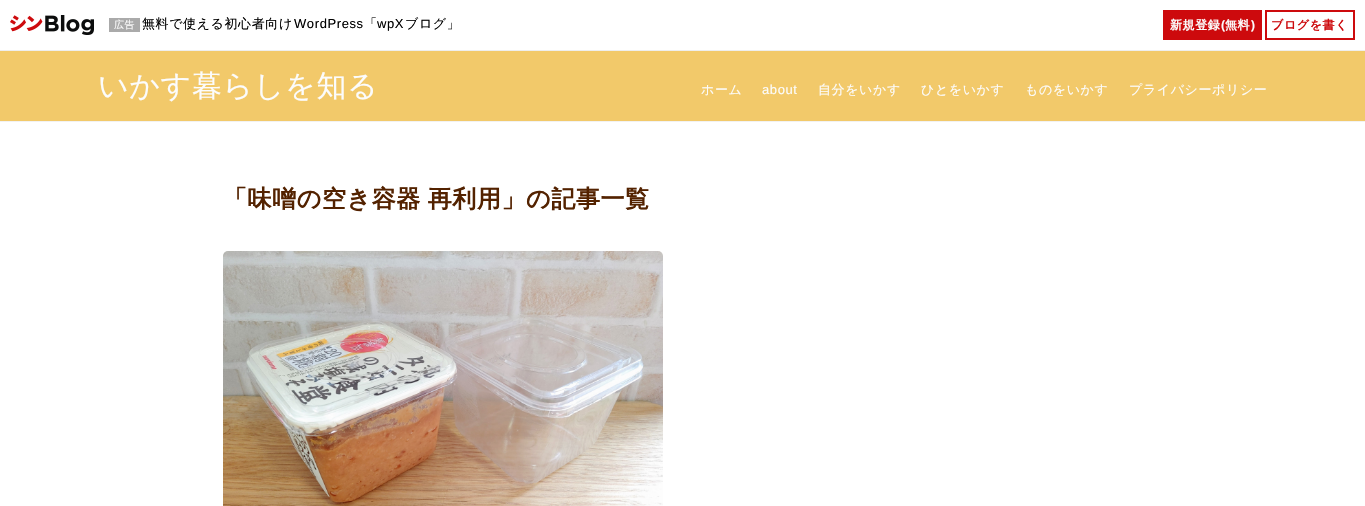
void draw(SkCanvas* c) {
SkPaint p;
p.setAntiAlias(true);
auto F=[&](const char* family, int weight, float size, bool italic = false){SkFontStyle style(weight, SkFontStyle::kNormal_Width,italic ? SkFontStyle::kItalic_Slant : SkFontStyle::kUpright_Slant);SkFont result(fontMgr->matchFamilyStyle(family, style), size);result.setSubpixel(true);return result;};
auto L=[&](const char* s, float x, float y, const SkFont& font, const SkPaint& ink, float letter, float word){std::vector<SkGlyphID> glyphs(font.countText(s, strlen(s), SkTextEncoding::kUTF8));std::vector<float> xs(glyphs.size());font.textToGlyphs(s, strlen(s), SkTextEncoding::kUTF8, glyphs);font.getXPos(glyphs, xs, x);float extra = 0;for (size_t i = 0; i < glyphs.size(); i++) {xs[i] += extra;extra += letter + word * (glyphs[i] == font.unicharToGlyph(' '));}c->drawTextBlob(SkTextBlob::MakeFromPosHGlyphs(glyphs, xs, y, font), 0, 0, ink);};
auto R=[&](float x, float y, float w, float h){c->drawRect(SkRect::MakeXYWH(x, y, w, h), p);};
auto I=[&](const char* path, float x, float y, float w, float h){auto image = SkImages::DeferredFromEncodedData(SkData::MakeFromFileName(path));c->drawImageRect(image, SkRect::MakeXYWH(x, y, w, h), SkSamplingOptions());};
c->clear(0xffffffff);
p.setColor(0xffeeeeee);
R(0,50,1365,1);
I("1.png",10,15,84,20);
p.setColor(0xffaaaaaa);
R(109,18,31,14);
auto f1 = F("WenQuanYi Zen Hei",500,10);
p.setColor(0xfffcfcfc);
L("広告",114,28,f1,p,.6,0);
auto f2 = F("WenQuanYi Zen Hei",500,13);
p.setColor(0xff000000);
L("無料で使える初心者向け",142,28,f2,p,.6,0);
auto f3 = F("Liberation Sans",400,13);
L("WordPress",294,28,f3,p,.6,0);
L("「",364,28,f2,p,.6,0);
L("wpX",377,28,f3,p,.6,0);
L("ブログ」",405,28,f2,p,.6,0);
p.setColor(0xffcd0a0d);
R(1163,10,99,30);
auto f4 = F("WenQuanYi Zen Hei",700,12);
p.setColor(0xfffcfcfc);
L("新規登録",1170,29,f4,p,.6,0);
auto f5 = F("Liberation Sans",700,12);
L("(",1221,29,f5,p,.6,0);
L("無料",1225,29,f4,p,.6,0);
L(")",1251,29,f5,p,.6,0);
p.setStroke(true);
p.setStrokeWidth(2);
p.setColor(0xffcd0a0d);
c->drawRect(SkRect::MakeXYWH(1266,11,88,28),p);
p.setStroke(false);
L("ブログを書く",1271,29,f4,p,.6,0);
p.setColor(0xfff2c96a);
R(0,51,1365,70);
p.setColor(0xfff2f2f2);
R(0,121,1365,1);
auto f6 = F("WenQuanYi Zen Hei",500,30);
p.setColor(0xfffcfcfc);
L("いかす暮らしを知る",98,96,f6,p,.6,0);
L("ホーム",701,94,f2,p,.6,0);
L("about",762,94,f3,p,.6,0);
L("自分をいかす",818,94,f2,p,.6,0);
L("ひとをいかす",921,94,f2,p,.6,0);
L("ものをいかす",1025,94,f2,p,.6,0);
L("プライバシーポリシー",1129,94,f2,p,.6,0);
auto f7 = F("WenQuanYi Zen Hei",700,24);
p.setColor(0xff532200);
L("「味噌の空き容器 再利用」の記事一覧",223,207,f7,p,.6,-1);
I("2.png",223,251,440,255);
}
